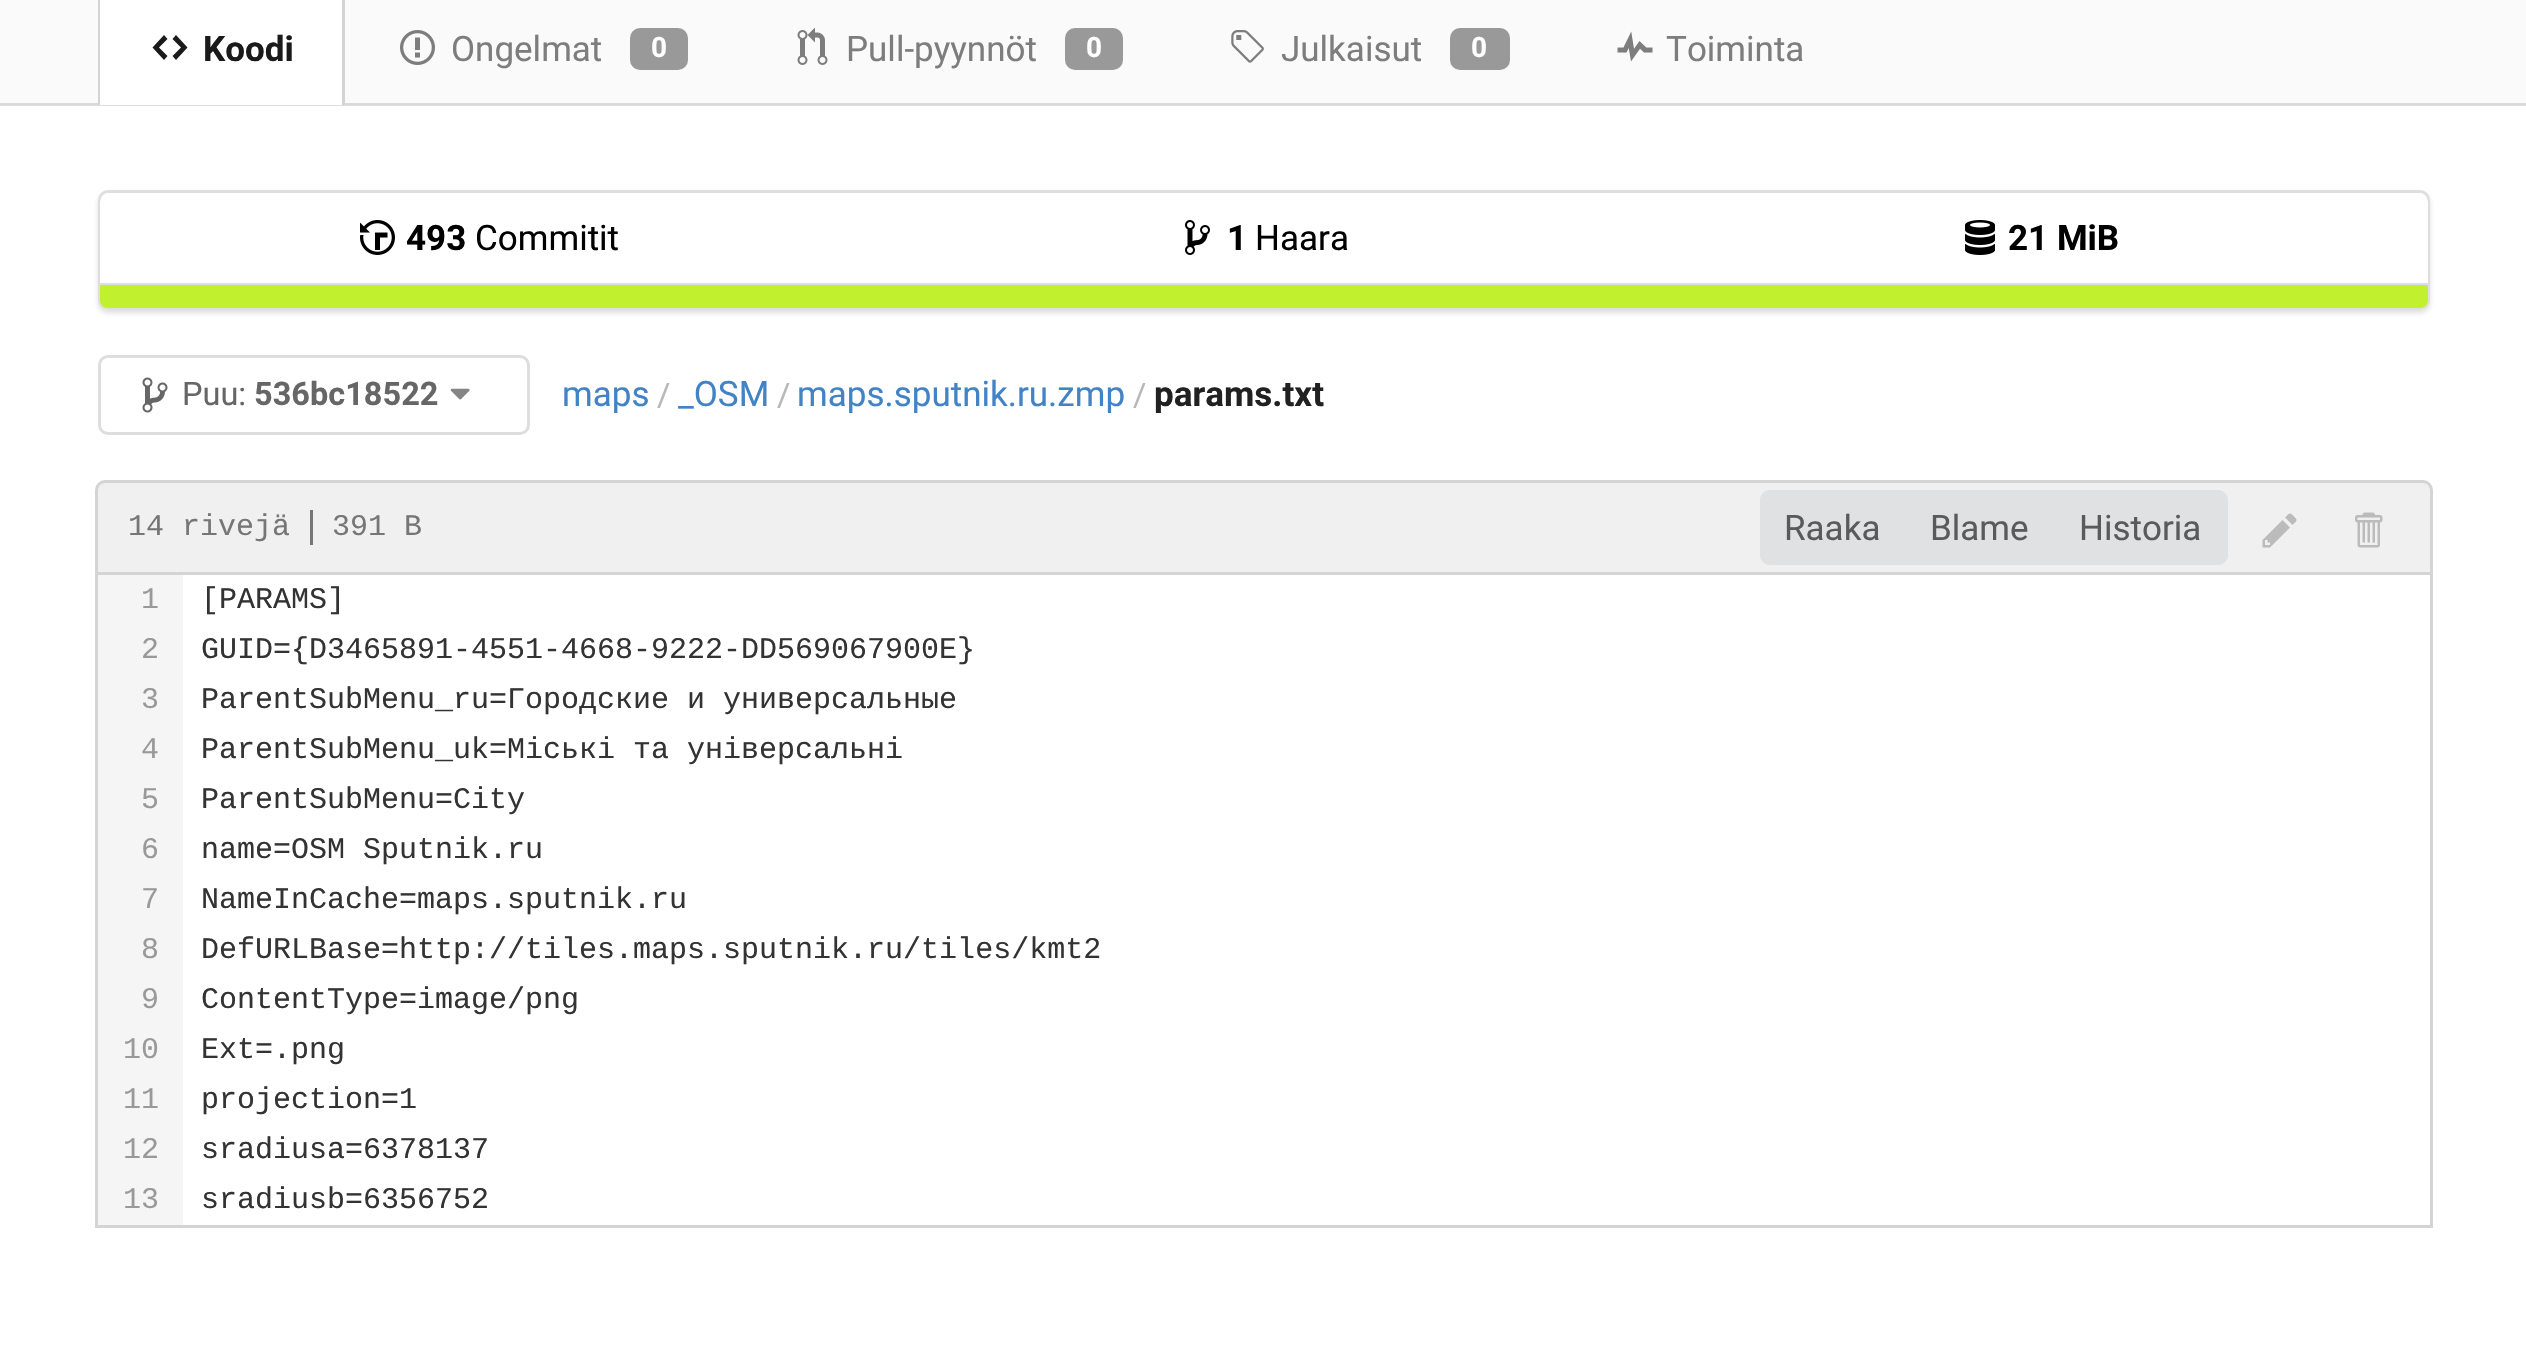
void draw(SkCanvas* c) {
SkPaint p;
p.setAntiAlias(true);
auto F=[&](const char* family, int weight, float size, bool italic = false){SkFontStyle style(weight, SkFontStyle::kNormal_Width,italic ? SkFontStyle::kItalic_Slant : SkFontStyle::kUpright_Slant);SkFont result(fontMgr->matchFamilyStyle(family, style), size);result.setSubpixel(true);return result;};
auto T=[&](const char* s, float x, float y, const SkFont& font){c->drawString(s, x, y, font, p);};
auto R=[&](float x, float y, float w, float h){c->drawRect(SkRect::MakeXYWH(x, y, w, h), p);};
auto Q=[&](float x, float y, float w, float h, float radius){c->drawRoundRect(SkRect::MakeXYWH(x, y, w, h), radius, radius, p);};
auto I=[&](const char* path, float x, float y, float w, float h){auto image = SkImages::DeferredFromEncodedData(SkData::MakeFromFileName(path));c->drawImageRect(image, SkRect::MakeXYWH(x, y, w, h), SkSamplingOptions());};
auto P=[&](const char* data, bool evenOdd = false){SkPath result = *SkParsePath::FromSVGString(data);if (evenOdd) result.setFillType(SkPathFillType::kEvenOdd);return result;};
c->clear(0xffffffff);
p.setColor(0xffdedede);
R(0,105,2526,1);
p.setColor(0xfffafafa);
R(0,0,2526,103);
p.setColor(0xffdadada);
R(0,103,2526,2);
p.setColor(0xffffffff);
R(100,0,242,105);
p.setColor(0xffd4d4d5);
c->drawPath(P("M108-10h227c6 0 10 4 10 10v105h-247v-105c0-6 4-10 10-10zm0 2h227c4 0 7 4 7 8v105h-242v-105c0-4 3-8 8-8z",true),p);
p.setColor(0xff1a1a1a);
c->drawPath(P("M176 35l-3.5 4l8.5 8.5l-8.5 8.5l3.5 4l11.5-12.5zm-12 0l-11.5 12.5l11.5 12.5l3.5-4l-8.5-8.5l8.5-8.5z",true),p);
auto f1 = F("Roboto",700,35);
T("Koodi",203,61,f1);
I("1.png",400,30,35,35);
auto f2 = F("Roboto",400,35);
p.setColor(0xff7d7d7d);
T("Ongelmat",451,61,f2);
p.setColor(0xff999999);
Q(630,28,58,42,10);
auto f3 = F("Roboto",700,28);
p.setColor(0xffffffff);
T("0",651,57,f3);
I("2.png",797,28,31,37);
p.setColor(0xff7d7d7d);
T("Pull-pyynnöt",846,61,f2);
p.setColor(0xff999999);
Q(1065,28,58,42,10);
p.setColor(0xffffffff);
T("0",1086,57,f3);
I("3.png",1231,30,33,33);
p.setColor(0xff7d7d7d);
T("Julkaisut",1281,61,f2);
p.setColor(0xff999999);
Q(1450,28,60,42,10);
p.setColor(0xffffffff);
T("0",1471,57,f3);
I("4.png",1617,31,36,31);
p.setColor(0xff7d7d7d);
T("Toiminta",1666,61,f2);
c->save();
c->clipPath(P("M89 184h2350v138h-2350zm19 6h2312c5.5 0 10 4.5 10 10v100c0 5.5-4.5 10-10 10h-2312c-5.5 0-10-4.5-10-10v-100c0-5.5 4.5-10 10-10z",true),true);
p.setColor(0x26222426);
p.setMaskFilter(SkMaskFilter::MakeBlur(kNormal_SkBlurStyle, 2.5));
c->drawRoundRect(SkRect::MakeXYWH(98,193,2332,120),10,10,p);
p.setMaskFilter(nullptr);
c->restore();
p.setStroke(true);
p.setStrokeWidth(3);
c->drawRoundRect(SkRect::MakeXYWH(99.5,191.5,2329,117),8.5,8.5,p);
p.setStroke(false);
p.setColor(0xffffffff);
c->drawPath(P("M110 193h2308c5.5 0 10 4.5 10 10v80h-2328v-80c0-5.5 4.5-10 10-10z"),p);
I("5.png",360,220,35,35);
p.setColor(0xff000000);
T("493",406,250,f1);
T("Commitit",475,250,f2);
I("6.png",1185,220,25,35);
T("1",1227,250,f1);
T("Haara",1255,250,f2);
I("7.png",1965,220,30,35);
T("21 MiB",2008,250,f1);
p.setColor(0xffdedede);
R(100,283,2328,2);
p.setColor(0xffc1f12e);
c->drawPath(P("M100 285h2328v15c0 4.5-3.5 8-8 8h-2312c-4.5 0-8-3.5-8-8z"),p);
p.setStroke(true);
p.setColor(0xffdedede);
c->drawRoundRect(SkRect::MakeXYWH(99.5,356.5,429,77),8.5,8.5,p);
I("8.png",142,377,26,36);
auto f4 = F("Roboto",400,32.5);
p.setStroke(false);
p.setColor(0xff666666);
T("Puu:",182,405,f4);
auto f5 = F("Roboto",700,32.5);
T("536bc18522",254,405,f5);
I("9.png",450,388,20,12);
p.setColor(0xff4183c4);
T("maps",562,406,f2);
p.setColor(0xffb8b8b8);
T("/",657,406,f4);
p.setColor(0xff4183c4);
T("_OSM",678,406,f2);
p.setColor(0xffb8b8b8);
T("/",777,406,f4);
p.setColor(0xff4183c4);
T("maps.sputnik.ru.zmp",797,406,f2);
p.setColor(0xffb8b8b8);
T("/",1133,406,f4);
p.setColor(0xff212121);
T("params.txt",1154,406,f1);
p.setColor(0xfff0f0f0);
c->drawPath(P("M105 481.5h2318c4.5 0 8.5 4 8.5 8.5v83.5h-2335v-83.5c0-4.5 4-8.5 8.5-8.5z"),p);
p.setStroke(true);
p.setColor(0xffd4d4d5);
c->drawPath(P("M105 481.5h2318c4.5 0 8.5 4 8.5 8.5v83.5h-2335v-83.5c0-4.5 4-8.5 8.5-8.5z"),p);
auto f6 = F("Liberation Mono",400,30);
p.setStroke(false);
p.setColor(0xff767676);
T("14 rivejä",128,535,f6);
R(310,510,3,35);
T("391 B",332,535,f6);
p.setColor(0xffe0e1e2);
c->drawPath(P("M1770 490h135v75h-135c-5.5 0-10-4.5-10-10v-55c0-5.5 4.5-10 10-10z"),p);
p.setColor(0xff5a5a5a);
T("Raaka",1784,540,f2);
p.setColor(0xffe0e1e2);
R(1905,490,150,75);
p.setColor(0xff5a5a5a);
T("Blame",1930,540,f2);
p.setColor(0xffe0e1e2);
c->drawPath(P("M2055 490h163c5.5 0 10 4.5 10 10v55c0 5.5-4.5 10-10 10h-163z"),p);
p.setColor(0xff5a5a5a);
T("Historia",2079,540,f2);
I("10.png",2262,513,35,35);
I("11.png",2355,512,28,36);
p.setColor(0xffd4d4d5);
R(2430,575,3,653);
R(95,1225,2338,3);
R(95,575,3,653);
p.setColor(0xfff5f5f5);
R(98,575,85,650);
p.setColor(0xff999999);
T("1",141,608,f6);
T("2",141,658,f6);
T("3",141,708,f6);
T("4",141,758,f6);
T("5",141,808,f6);
T("6",141,858,f6);
T("7",141,908,f6);
T("8",141,958,f6);
T("9",141,1008,f6);
T("10",123,1058,f6);
T("11",123,1108,f6);
T("12",123,1158,f6);
T("13",123,1208,f6);
p.setColor(0xff333333);
T("[PARAMS]",201,608,f6);
T("GUID={D3465891-4551-4668-9222-DD569067900E}",201,658,f6);
T("ParentSubMenu_ru=Городские и универсальные",201,708,f6);
T("ParentSubMenu_uk=Міські та універсальні",201,758,f6);
T("ParentSubMenu=City",201,808,f6);
T("name=OSM Sputnik.ru",201,858,f6);
T("NameInCache=maps.sputnik.ru",201,908,f6);
T("DefURLBase=http://tiles.maps.sputnik.ru/tiles/kmt2",201,958,f6);
T("ContentType=image/png",201,1008,f6);
T("Ext=.png",201,1058,f6);
T("projection=1",201,1108,f6);
T("sradiusa=6378137",201,1158,f6);
T("sradiusb=6356752",201,1208,f6);
}
